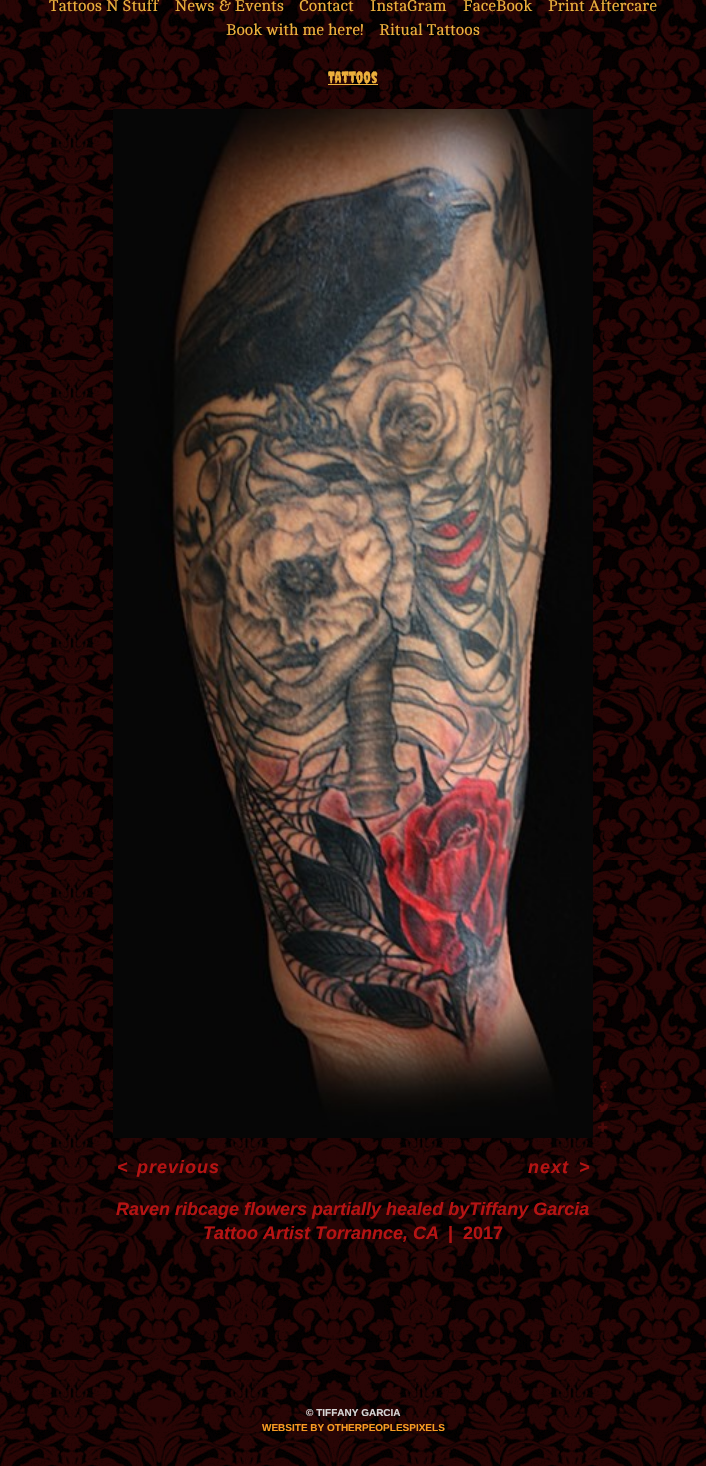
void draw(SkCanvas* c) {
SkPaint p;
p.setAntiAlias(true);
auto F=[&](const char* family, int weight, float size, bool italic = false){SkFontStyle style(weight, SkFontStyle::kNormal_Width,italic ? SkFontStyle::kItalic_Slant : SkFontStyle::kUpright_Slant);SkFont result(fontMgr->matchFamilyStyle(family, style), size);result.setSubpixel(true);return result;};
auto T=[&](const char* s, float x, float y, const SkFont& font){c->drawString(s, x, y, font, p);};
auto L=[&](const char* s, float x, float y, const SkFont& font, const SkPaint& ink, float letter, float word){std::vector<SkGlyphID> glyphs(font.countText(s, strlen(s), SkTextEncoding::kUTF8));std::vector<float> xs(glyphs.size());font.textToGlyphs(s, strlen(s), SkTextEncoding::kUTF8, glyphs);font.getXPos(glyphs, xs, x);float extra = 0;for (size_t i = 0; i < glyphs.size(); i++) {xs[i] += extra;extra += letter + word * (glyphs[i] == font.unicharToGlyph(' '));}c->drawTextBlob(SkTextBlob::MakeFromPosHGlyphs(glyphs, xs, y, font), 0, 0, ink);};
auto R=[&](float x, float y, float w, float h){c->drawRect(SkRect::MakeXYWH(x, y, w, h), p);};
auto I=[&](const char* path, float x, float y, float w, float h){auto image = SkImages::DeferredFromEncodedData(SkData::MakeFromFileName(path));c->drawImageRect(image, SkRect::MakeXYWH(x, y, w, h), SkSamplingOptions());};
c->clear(0xffffffff);
I("1.png",0,0,706,1466);
auto f1 = F("Cambo",400,16);
p.setColor(0xffecb03c);
T("Tattoos N Stuff",49,11,f1);
T("News & Events",175,11,f1);
T("Contact",299,11,f1);
T("InstaGram",370,11,f1);
T("FaceBook",463,11,f1);
T("Print Aftercare",548,11,f1);
T("Book with me here!",226,35,f1);
T("Ritual Tattoos",379,35,f1);
auto f2 = F("Creepster",400,16);
T("Tattoos",328,83,f2);
R(328,84,50,1);
I("2.png",113,109,480,1029);
I("3.png",600,1081,7,12);
I("4.png",598,1103,11,9);
I("5.png",598,1122,10,10);
auto f3 = F("Liberation Sans",700,18,true);
p.setColor(0xffb41313);
L("<",117,1173,f3,p,1,0);
L("previous",137,1173,f3,p,1,0);
L("next",528,1173,f3,p,1,0);
L(">",579,1173,f3,p,1,0);
T("Raven ribcage flowers partially healed byTiffany Garcia",116,1215,f3);
T("Tattoo Artist Torrannce, CA",203,1239,f3);
auto f4 = F("Liberation Sans",700,18);
T("|",448,1239,f4);
T("2017",463,1239,f4);
auto f5 = F("Liberation Sans",700,10);
p.setColor(0xffd6d6d6);
T("© TIFFANY GARCIA",306,1416,f5);
p.setColor(0xfff79b22);
T("WEBSITE BY OTHERPEOPLESPIXELS",262,1431,f5);
}
